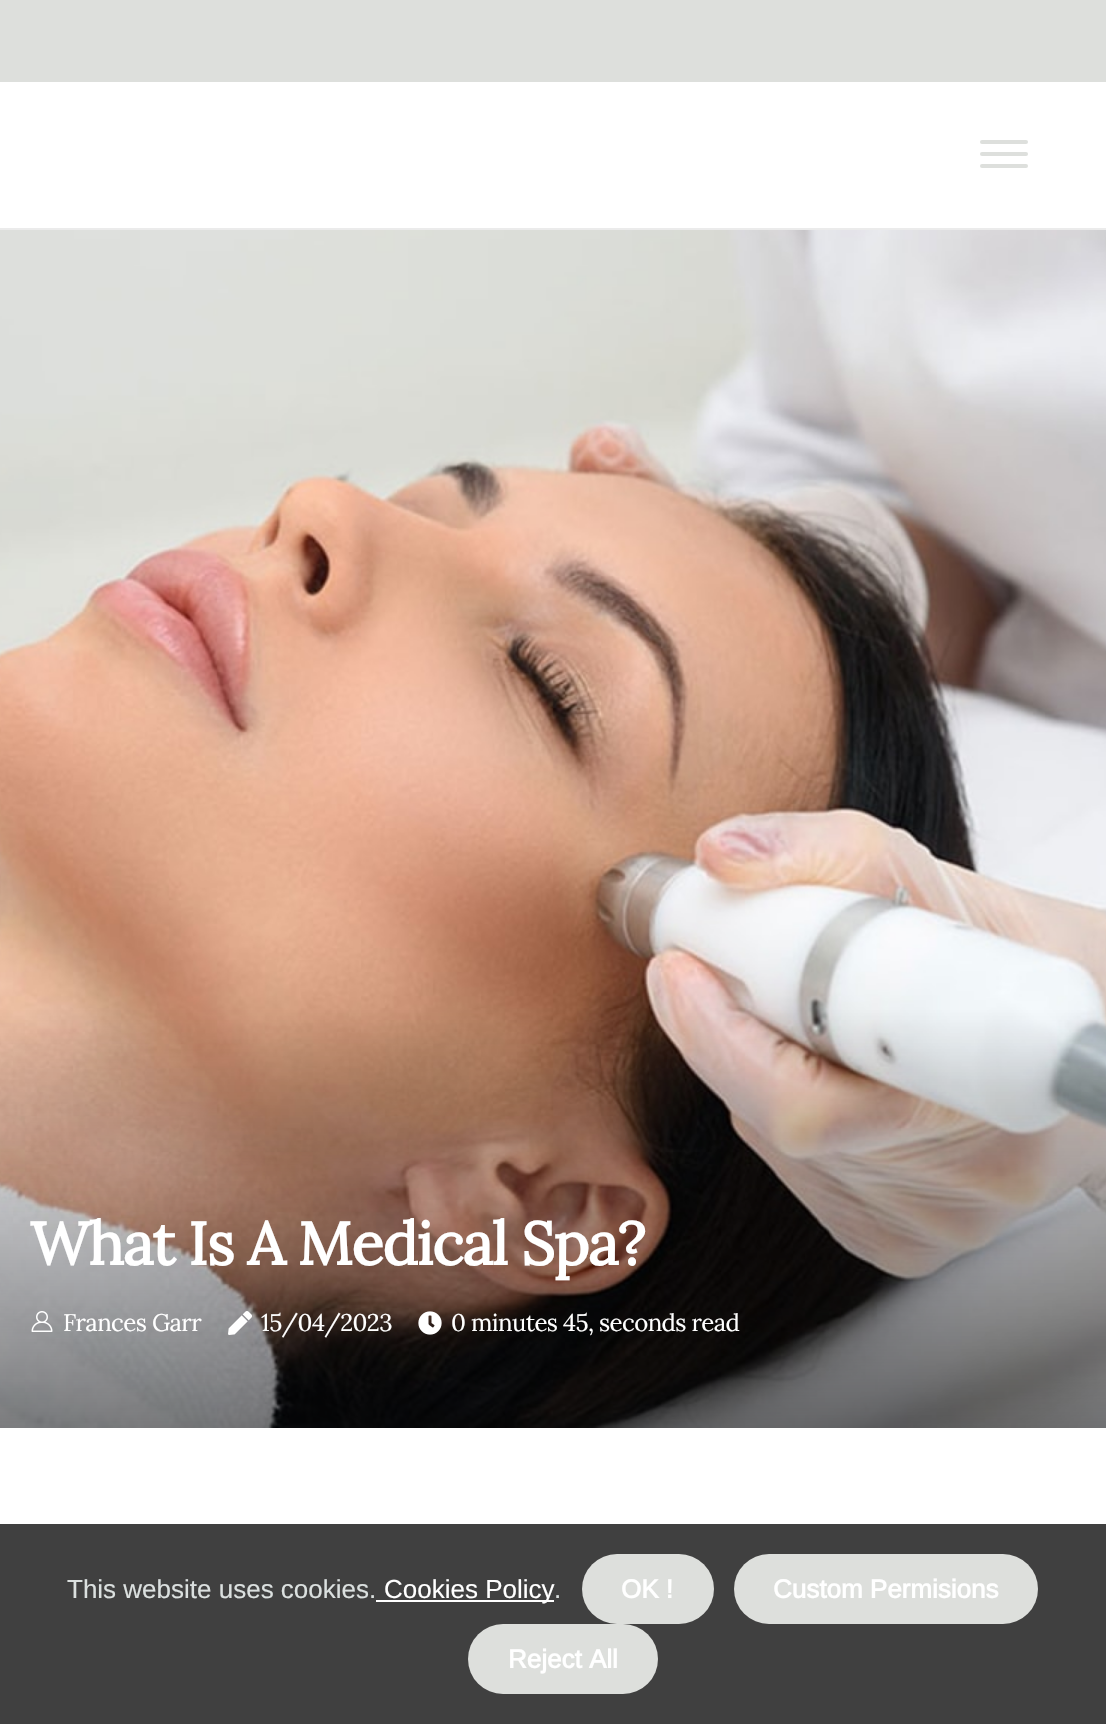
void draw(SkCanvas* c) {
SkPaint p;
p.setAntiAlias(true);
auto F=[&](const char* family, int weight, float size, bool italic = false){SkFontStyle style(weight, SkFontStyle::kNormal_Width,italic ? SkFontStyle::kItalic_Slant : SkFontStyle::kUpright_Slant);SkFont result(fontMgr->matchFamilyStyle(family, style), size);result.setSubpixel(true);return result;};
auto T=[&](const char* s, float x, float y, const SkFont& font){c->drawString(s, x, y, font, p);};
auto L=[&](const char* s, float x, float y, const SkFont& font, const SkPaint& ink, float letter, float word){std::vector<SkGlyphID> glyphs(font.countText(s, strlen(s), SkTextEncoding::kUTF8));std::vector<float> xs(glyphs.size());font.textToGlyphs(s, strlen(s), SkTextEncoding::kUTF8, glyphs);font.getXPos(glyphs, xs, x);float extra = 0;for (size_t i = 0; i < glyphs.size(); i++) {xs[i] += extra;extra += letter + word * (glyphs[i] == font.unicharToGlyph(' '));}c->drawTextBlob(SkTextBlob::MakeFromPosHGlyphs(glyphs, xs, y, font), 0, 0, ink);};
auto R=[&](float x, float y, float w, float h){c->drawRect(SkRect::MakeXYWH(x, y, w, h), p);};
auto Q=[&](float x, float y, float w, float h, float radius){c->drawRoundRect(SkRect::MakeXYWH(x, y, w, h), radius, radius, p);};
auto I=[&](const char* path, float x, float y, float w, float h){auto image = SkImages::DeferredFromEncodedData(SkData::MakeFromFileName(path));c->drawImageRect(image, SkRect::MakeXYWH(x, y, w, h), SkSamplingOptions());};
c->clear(0xffffffff);
p.setColor(0xffdddfdc);
R(0,0,1106,82);
p.setColor(0xffebebeb);
R(0,228,1106,2);
p.setColor(0xffdddfdc);
Q(980,140,48,4,2);
Q(980,152,48,4,2);
Q(980,164,48,4,2);
I("1.png",0,230,1106,1198);
auto f1 = F("Lora",700,60);
p.setColor(0xffffffff);
L("What Is A Medical Spa?",30,1265,f1,p,-1.5,0);
I("2.png",31,1311,22,21);
auto f2 = F("Lora",400,24);
L("Frances Garr",63,1331,f2,p,-.6,0);
I("3.png",228,1311,24,24);
L("15/04/2023",261,1331,f2,p,-.6,0);
I("4.png",418,1311,24,24);
L("0 minutes 45, seconds read",451,1331,f2,p,-.6,0);
p.setColor(0xbf000000);
R(0,1524,1106,200);
auto f3 = F("Arimo",400,26);
p.setColor(0xffdbe0df);
T("This website uses cookies.",67,1598,f3);
p.setColor(0xffffffff);
R(376,1600,178,2);
T("Cookies Policy",384,1598,f3);
p.setColor(0xffdbe0df);
T(".",554,1598,f3);
p.setColor(0xffdddfdc);
Q(582,1554,132,70,35);
auto f4 = F("Arimo",700,26);
p.setColor(0xffffffff);
T("OK !",621,1598,f4);
p.setColor(0xffdddfdc);
Q(734,1554,304,70,35);
p.setColor(0xffffffff);
T("Custom Permisions",773,1598,f4);
p.setColor(0xffdddfdc);
Q(468,1624,190,70,35);
p.setColor(0xffffffff);
T("Reject All",508,1668,f4);
}
